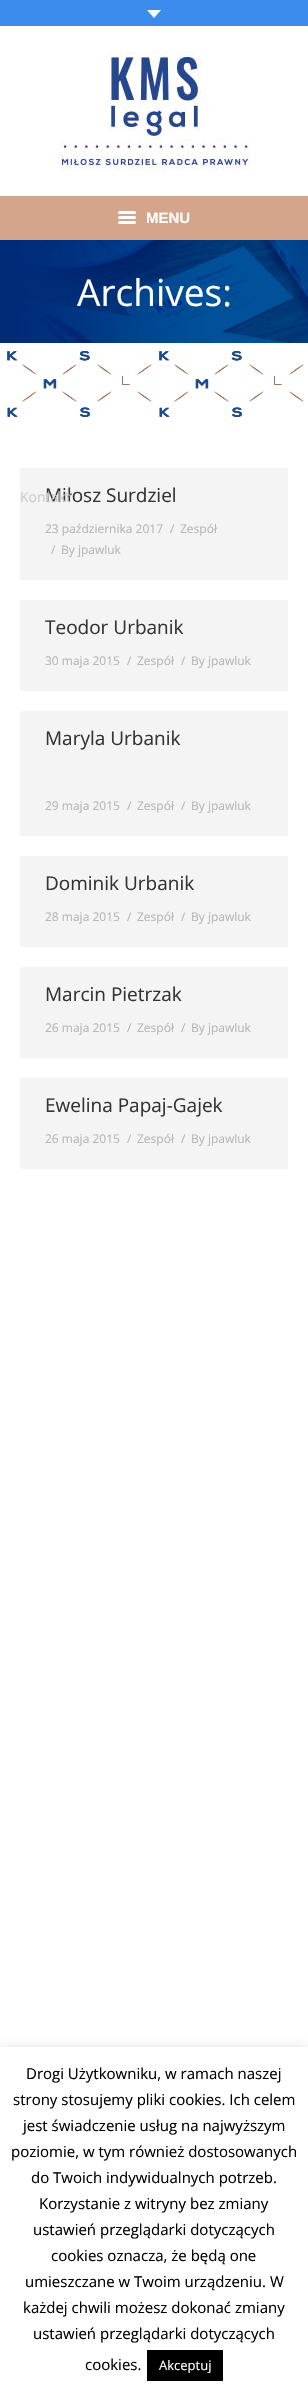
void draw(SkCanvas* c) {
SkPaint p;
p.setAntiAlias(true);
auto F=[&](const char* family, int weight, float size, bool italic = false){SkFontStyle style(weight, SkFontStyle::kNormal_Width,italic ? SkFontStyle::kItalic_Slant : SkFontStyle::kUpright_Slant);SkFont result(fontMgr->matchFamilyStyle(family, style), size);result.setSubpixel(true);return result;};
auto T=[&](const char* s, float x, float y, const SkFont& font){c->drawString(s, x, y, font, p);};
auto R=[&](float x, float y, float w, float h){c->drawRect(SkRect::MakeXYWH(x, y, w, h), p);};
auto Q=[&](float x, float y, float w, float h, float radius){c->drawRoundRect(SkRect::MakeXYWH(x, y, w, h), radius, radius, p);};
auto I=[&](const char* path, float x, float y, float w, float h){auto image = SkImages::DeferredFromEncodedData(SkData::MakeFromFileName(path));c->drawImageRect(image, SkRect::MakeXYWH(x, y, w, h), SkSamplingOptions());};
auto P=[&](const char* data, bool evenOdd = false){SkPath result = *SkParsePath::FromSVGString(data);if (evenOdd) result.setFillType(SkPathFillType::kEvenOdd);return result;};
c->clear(0xffffffff);
p.setColor(0xff3b8ced);
R(0,0,308,26);
p.setColor(0xffffffff);
c->drawPath(P("M147 10h14l-7 8z"),p);
I("1.png",58,51,192,120);
p.setColor(0xffd4a58a);
R(0,196,308,44);
p.setColor(0xffffffff);
Q(118,216,18,3,1.5);
Q(118,211,18,3,1.5);
Q(118,221,18,3,1.5);
auto f1 = F("Liberation Sans",700,15);
T("MENU",146,223,f1);
p.setColor(0xfff4f4f4);
R(20,468,268,112);
auto f2 = F("Open Sans",400,19);
p.setColor(0xff333333);
T("Miłosz Surdziel",45,502,f2);
auto f3 = F("Open Sans",400,14);
p.setColor(0xffcccccc);
T("Kontakt",20,502,f3);
I("2.png",0,240,308,103);
auto f4 = F("Open Sans",400,37);
p.setColor(0xffffffff);
T("Archives:",77,306,f4);
I("3.png",7,351,297,66);
auto f5 = F("Open Sans",400,12);
p.setColor(0xffb6b6b6);
T("23 października 2017",45,533,f5);
T("/",170,533,f5);
T("Zespół",180,533,f5);
T("/",51,554,f5);
T("By jpawluk",61,554,f5);
p.setColor(0xfff4f4f4);
R(20,600,268,91);
p.setColor(0xff333333);
T("Teodor Urbanik",45,634,f2);
p.setColor(0xffb6b6b6);
T("30 maja 2015",45,665,f5);
T("/",127,665,f5);
T("Zespół",137,665,f5);
T("/",181,665,f5);
T("By jpawluk",191,665,f5);
p.setColor(0xfff4f4f4);
R(20,711,268,125);
p.setColor(0xff333333);
T("Maryla Urbanik",45,745,f2);
p.setColor(0xffb6b6b6);
T("29 maja 2015",45,810,f5);
T("/",127,810,f5);
T("Zespół",137,810,f5);
T("/",181,810,f5);
T("By jpawluk",191,810,f5);
p.setColor(0xfff4f4f4);
R(20,856,268,91);
p.setColor(0xff333333);
T("Dominik Urbanik",45,890,f2);
p.setColor(0xffb6b6b6);
T("28 maja 2015",45,921,f5);
T("/",127,921,f5);
T("Zespół",137,921,f5);
T("/",181,921,f5);
T("By jpawluk",191,921,f5);
p.setColor(0xfff4f4f4);
R(20,967,268,91);
p.setColor(0xff333333);
T("Marcin Pietrzak",45,1001,f2);
p.setColor(0xffb6b6b6);
T("26 maja 2015",45,1032,f5);
T("/",127,1032,f5);
T("Zespół",137,1032,f5);
T("/",181,1032,f5);
T("By jpawluk",191,1032,f5);
p.setColor(0xfff4f4f4);
R(20,1078,268,91);
p.setColor(0xff333333);
T("Ewelina Papaj-Gajek",45,1112,f2);
p.setColor(0xffb6b6b6);
T("26 maja 2015",45,1143,f5);
T("/",127,1143,f5);
T("Zespół",137,1143,f5);
T("/",181,1143,f5);
T("By jpawluk",191,1143,f5);
p.setColor(0x4dacabab);
p.setMaskFilter(SkMaskFilter::MakeBlur(kNormal_SkBlurStyle, 5));
c->drawRect(SkRect::MakeXYWH(0,2046,308,346),p);
p.setMaskFilter(nullptr);
p.setColor(0xffffffff);
R(0,2047,308,346);
auto f6 = F("Open Sans",400,15);
p.setColor(0xff000000);
T("Drogi Użytkowniku, w ramach naszej",26,2079,f6);
T("strony stosujemy pliki cookies. Ich celem",13,2105,f6);
T("jest świadczenie usług na najwyższym",23,2131,f6);
T("poziomie, w tym również dostosowanych",11,2157,f6);
T("do Twoich indywidualnych potrzeb.",31,2183,f6);
T("Korzystanie z witryny bez zmiany",39,2209,f6);
T("ustawień przeglądarki dotyczących",33,2235,f6);
T("cookies oznacza, że będą one",51,2261,f6);
T("umieszczane w Twoim urządzeniu. W",25,2287,f6);
T("każdej chwili możesz dokonać zmiany",23,2313,f6);
T("ustawień przeglądarki dotyczących",33,2339,f6);
T("cookies.",85,2370,f6);
R(147,2350,76,31);
auto f7 = F("Open Sans",400,13);
p.setColor(0xffffffff);
T("Akceptuj",159,2370,f7);
}
